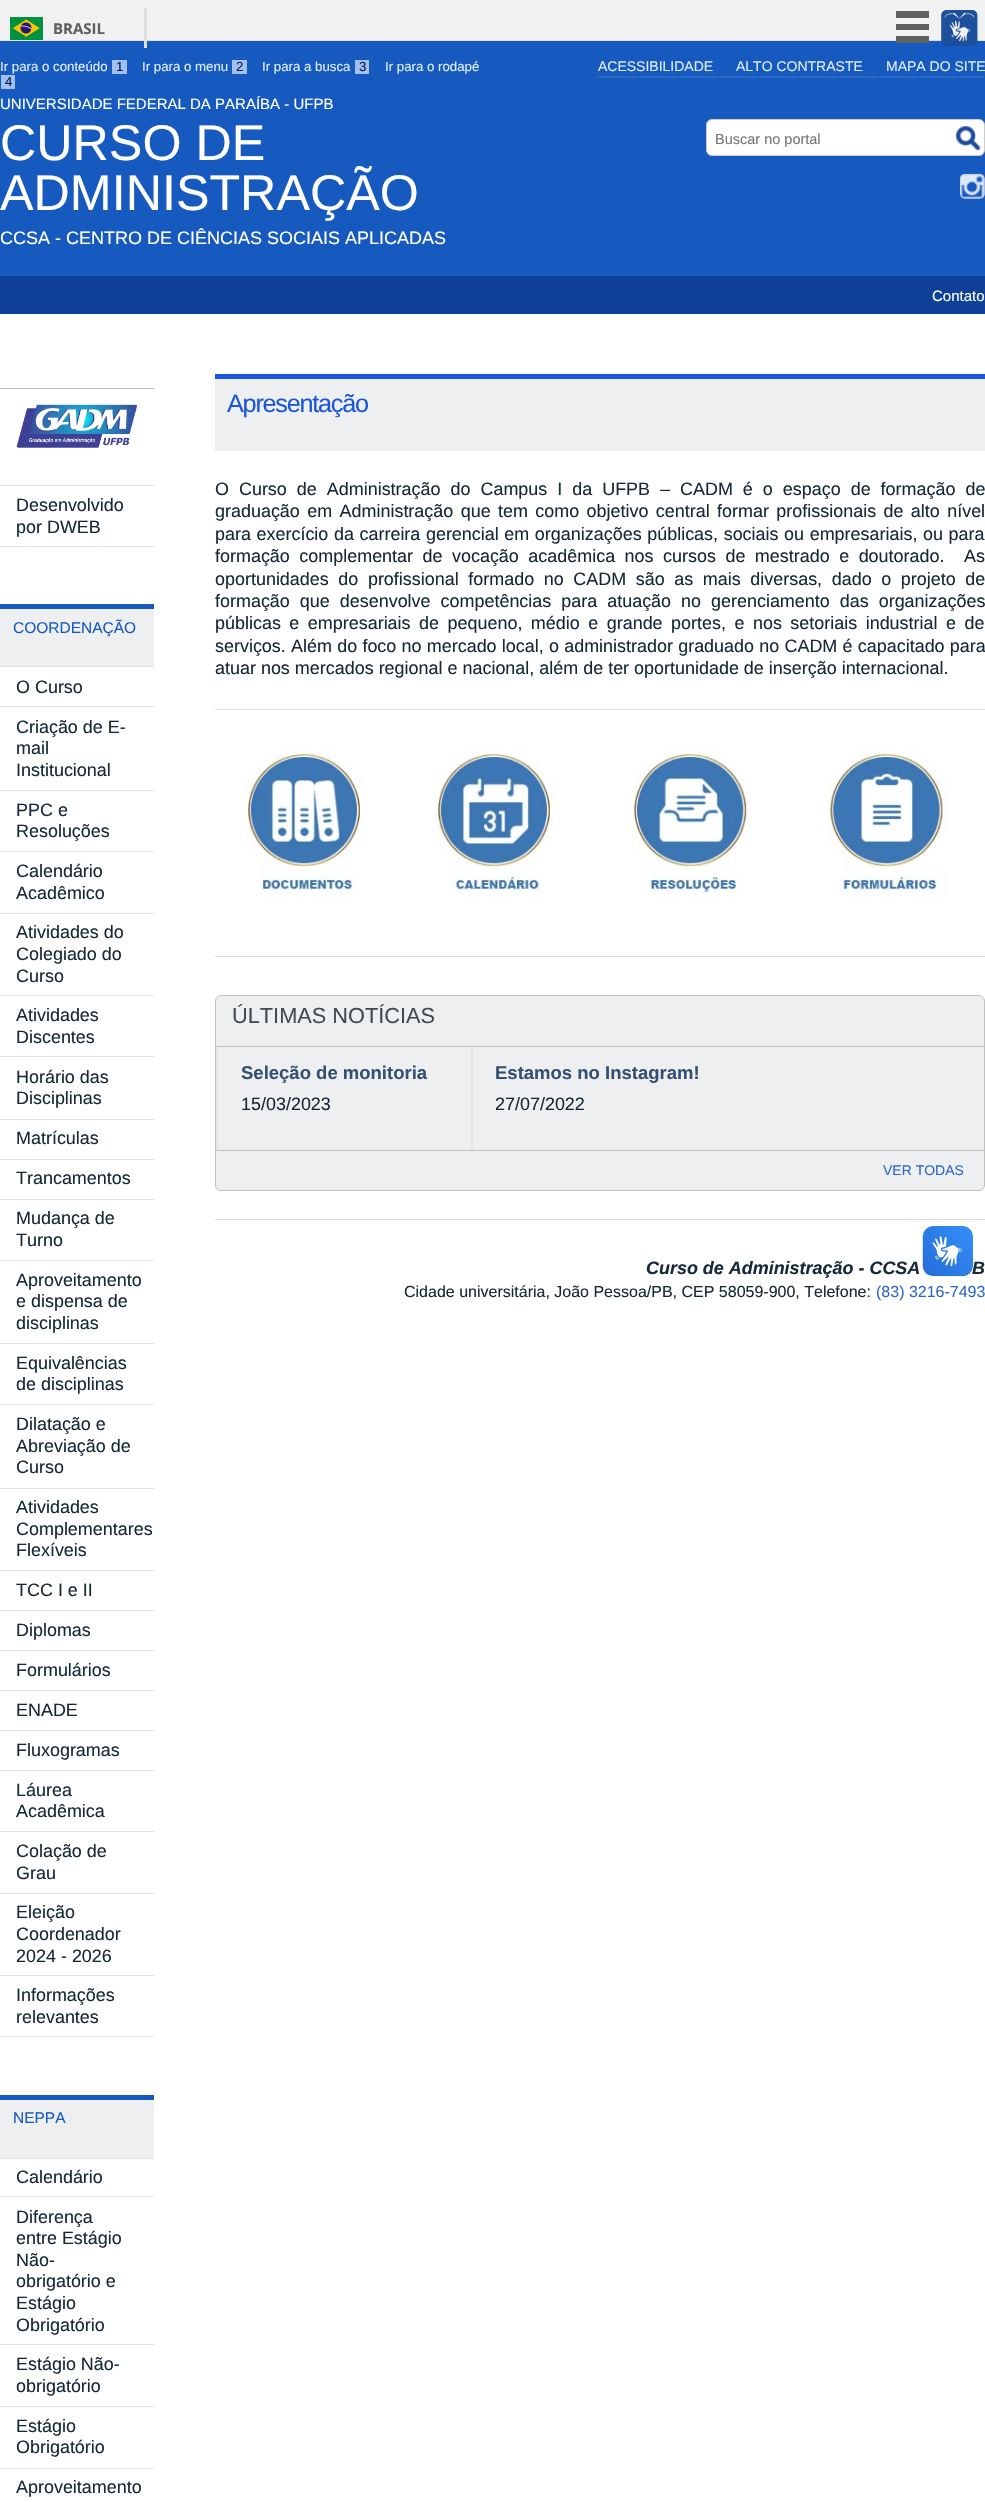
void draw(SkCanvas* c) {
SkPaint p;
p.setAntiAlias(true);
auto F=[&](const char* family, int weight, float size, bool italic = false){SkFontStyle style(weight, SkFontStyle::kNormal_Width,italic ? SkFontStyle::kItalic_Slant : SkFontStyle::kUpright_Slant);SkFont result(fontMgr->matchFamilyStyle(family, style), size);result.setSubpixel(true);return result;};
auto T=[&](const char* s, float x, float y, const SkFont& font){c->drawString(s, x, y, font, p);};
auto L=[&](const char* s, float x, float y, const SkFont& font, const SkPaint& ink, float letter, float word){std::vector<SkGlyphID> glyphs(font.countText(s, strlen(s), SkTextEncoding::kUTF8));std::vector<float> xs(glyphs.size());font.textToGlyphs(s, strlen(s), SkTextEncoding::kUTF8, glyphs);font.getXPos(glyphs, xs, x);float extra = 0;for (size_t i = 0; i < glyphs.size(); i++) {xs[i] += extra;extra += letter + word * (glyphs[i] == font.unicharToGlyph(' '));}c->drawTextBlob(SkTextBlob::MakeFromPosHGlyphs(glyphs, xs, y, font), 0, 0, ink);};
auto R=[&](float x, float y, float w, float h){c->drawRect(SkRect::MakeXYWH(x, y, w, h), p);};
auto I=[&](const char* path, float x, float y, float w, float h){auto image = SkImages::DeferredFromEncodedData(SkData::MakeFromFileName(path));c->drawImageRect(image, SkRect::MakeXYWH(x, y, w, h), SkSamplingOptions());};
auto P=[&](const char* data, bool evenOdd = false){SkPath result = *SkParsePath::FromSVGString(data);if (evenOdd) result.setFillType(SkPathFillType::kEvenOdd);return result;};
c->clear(0xffffffff);
p.setColor(0xfff1f1f1);
R(0,0,985,40);
p.setColor(0xffdfdfdf);
R(0,40,985,1);
p.setColor(0xff1659bf);
R(0,41,985,235);
p.setColor(0xffdfdfdf);
R(144,8,3,40);
I("1.png",10,17,33,23);
auto f1 = F("Open Sans",700,15);
p.setColor(0xff606060);
T("BRASIL",53,34,f1);
R(896,11,33,7);
R(896,24,33,6);
R(896,36,33,7);
I("2.png",941,10,37,36);
auto f2 = F("Liberation Sans",400,13.25);
p.setColor(0xffdcecff);
T("Ir para o conteúdo",0,71,f2);
p.setColor(0xffa1c0ec);
R(112,60,15,14);
p.setColor(0xff0a1857);
T("1",116,71,f2);
p.setColor(0xffdcecff);
T("Ir para o menu",142,71,f2);
p.setColor(0xffa1c0ec);
R(232,60,15,14);
p.setColor(0xff0a1857);
T("2",236,71,f2);
p.setColor(0xffdcecff);
T("Ir para a busca",262,71,f2);
p.setColor(0xffa1c0ec);
R(355,60,14,14);
p.setColor(0xff0a1857);
T("3",359,71,f2);
p.setColor(0xffdcecff);
T("Ir para o rodapé",385,71,f2);
p.setColor(0xffa1c0ec);
R(1,75,14,14);
p.setColor(0xff0a1857);
T("4",5,86,f2);
p.setStroke(true);
p.setStrokeWidth(1.2);
p.setColor(0xff6893cb);
p.setPathEffect(SkDashPathEffect::Make({{1.25f,1.25f}}, 0));
c->drawPath(P("M597.5 77h387.5"),p);
p.setPathEffect(nullptr);
auto f3 = F("Liberation Sans",400,14);
p.setStroke(false);
p.setColor(0xffdcecff);
T("ACESSIBILIDADE",598,71,f3);
T("ALTO CONTRASTE",736,71,f3);
T("MAPA DO SITE",886,71,f3);
auto f4 = F("Liberation Sans",400,15);
p.setColor(0xffffffff);
T("UNIVERSIDADE FEDERAL DA PARAÍBA - UFPB",0,109,f4);
auto f5 = F("Liberation Sans",400,50.25);
T("CURSO DE",0,160,f5);
T("ADMINISTRAÇÃO",0,210,f5);
auto f6 = F("Liberation Sans",400,18);
T("CCSA - CENTRO DE CIÊNCIAS SOCIAIS APLICADAS",0,244,f6);
c->drawRoundRect(SkRect::MakeXYWH(706.5,119.5,278,36),5.5,5.5,p);
p.setStroke(true);
p.setStrokeWidth(1);
p.setColor(0xffcccccc);
c->drawRoundRect(SkRect::MakeXYWH(706.5,119.5,278,36),5.5,5.5,p);
auto f7 = F("Liberation Sans",400,14.5);
p.setStroke(false);
p.setColor(0xff757575);
T("Buscar no portal",715,144,f7);
I("3.png",956,126,25,25);
I("4.png",960,173,25,26);
p.setColor(0xff0f4098);
R(0,276,985,38);
p.setColor(0xffffffff);
T("Contato",932,301,f4);
p.setColor(0xffc1c1c1);
R(0,388,154,1);
I("5.png",16,404,122,44);
p.setColor(0xffdfdfdf);
R(0,485,154,1);
R(0,546,154,1);
auto f8 = F("Liberation Sans",400,17.95);
p.setColor(0xff172938);
T("Desenvolvido",16,511,f8);
T("por DWEB",16,533,f8);
p.setColor(0xffedeff1);
R(0,609,154,57);
p.setColor(0xff1659bf);
R(0,604,154,5);
auto f9 = F("Liberation Sans",400,15.5);
T("COORDENAÇÃO",13,633,f9);
p.setColor(0xffdfdfdf);
R(0,666,154,1);
p.setColor(0xff172938);
T("O Curso",16,693,f8);
p.setColor(0xffdfdfdf);
R(0,706,154,1);
p.setColor(0xff172938);
T("Criação de E-",16,733,f8);
T("mail",16,754,f8);
T("Institucional",16,776,f8);
p.setColor(0xffdfdfdf);
R(0,790,154,1);
p.setColor(0xff172938);
T("PPC e",16,816,f8);
T("Resoluções",16,837,f8);
p.setColor(0xffdfdfdf);
R(0,851,154,1);
p.setColor(0xff172938);
T("Calendário",16,877,f8);
T("Acadêmico",16,899,f8);
p.setColor(0xffdfdfdf);
R(0,913,154,1);
p.setColor(0xff172938);
T("Atividades do",16,938,f8);
T("Colegiado do",16,960,f8);
T("Curso",16,982,f8);
p.setColor(0xffdfdfdf);
R(0,995,154,1);
p.setColor(0xff172938);
T("Atividades",16,1021,f8);
T("Discentes",16,1043,f8);
p.setColor(0xffdfdfdf);
R(0,1056,154,1);
p.setColor(0xff172938);
T("Horário das",16,1083,f8);
T("Disciplinas",16,1104,f8);
p.setColor(0xffdfdfdf);
R(0,1119,154,1);
p.setColor(0xff172938);
T("Matrículas",16,1144,f8);
p.setColor(0xffdfdfdf);
R(0,1159,154,1);
p.setColor(0xff172938);
T("Trancamentos",16,1184,f8);
p.setColor(0xffdfdfdf);
R(0,1199,154,1);
p.setColor(0xff172938);
T("Mudança de",16,1224,f8);
T("Turno",16,1246,f8);
p.setColor(0xffdfdfdf);
R(0,1260,154,1);
p.setColor(0xff172938);
T("Aproveitamento",16,1286,f8);
T("e dispensa de",16,1307,f8);
T("disciplinas",16,1329,f8);
p.setColor(0xffdfdfdf);
R(0,1343,154,1);
p.setColor(0xff172938);
T("Equivalências",16,1369,f8);
T("de disciplinas",16,1390,f8);
p.setColor(0xffdfdfdf);
R(0,1404,154,1);
p.setColor(0xff172938);
T("Dilatação e",16,1430,f8);
T("Abreviação de",16,1452,f8);
T("Curso",16,1473,f8);
p.setColor(0xffdfdfdf);
R(0,1488,154,1);
p.setColor(0xff172938);
T("Atividades",16,1513,f8);
T("Complementares",16,1535,f8);
T("Flexíveis",16,1556,f8);
p.setColor(0xffdfdfdf);
R(0,1570,154,1);
p.setColor(0xff172938);
T("TCC I e II",16,1596,f8);
p.setColor(0xffdfdfdf);
R(0,1610,154,1);
p.setColor(0xff172938);
T("Diplomas",16,1636,f8);
p.setColor(0xffdfdfdf);
R(0,1650,154,1);
p.setColor(0xff172938);
T("Formulários",16,1676,f8);
p.setColor(0xffdfdfdf);
R(0,1690,154,1);
p.setColor(0xff172938);
T("ENADE",16,1716,f8);
p.setColor(0xffdfdfdf);
R(0,1730,154,1);
p.setColor(0xff172938);
T("Fluxogramas",16,1756,f8);
p.setColor(0xffdfdfdf);
R(0,1770,154,1);
p.setColor(0xff172938);
T("Láurea",16,1796,f8);
T("Acadêmica",16,1817,f8);
p.setColor(0xffdfdfdf);
R(0,1831,154,1);
p.setColor(0xff172938);
T("Colação de",16,1857,f8);
T("Grau",16,1879,f8);
p.setColor(0xffdfdfdf);
R(0,1893,154,1);
p.setColor(0xff172938);
T("Eleição",16,1918,f8);
T("Coordenador",16,1940,f8);
T("2024 - 2026",16,1962,f8);
p.setColor(0xffdfdfdf);
R(0,1975,154,1);
R(0,2036,154,1);
p.setColor(0xff172938);
T("Informações",16,2001,f8);
T("relevantes",16,2023,f8);
p.setColor(0xffedeff1);
R(0,2100,154,58);
p.setColor(0xff1659bf);
R(0,2095,154,5);
T("NEPPA",13,2123,f9);
p.setColor(0xffdfdfdf);
R(0,2158,154,1);
p.setColor(0xff172938);
T("Calendário",16,2183,f8);
p.setColor(0xffdfdfdf);
R(0,2196,154,1);
p.setColor(0xff172938);
T("Diferença",16,2223,f8);
T("entre Estágio",16,2244,f8);
T("Não-",16,2266,f8);
T("obrigatório e",16,2287,f8);
T("Estágio",16,2309,f8);
T("Obrigatório",16,2331,f8);
p.setColor(0xffdfdfdf);
R(0,2344,154,1);
p.setColor(0xff172938);
T("Estágio Não-",16,2370,f8);
T("obrigatório",16,2392,f8);
p.setColor(0xffdfdfdf);
R(0,2406,154,1);
p.setColor(0xff172938);
T("Estágio",16,2432,f8);
T("Obrigatório",16,2453,f8);
p.setColor(0xffdfdfdf);
R(0,2468,154,1);
p.setColor(0xff172938);
T("Aproveitamento",16,2493,f8);
p.setColor(0xff1a55dd);
R(215,374,770,5);
p.setColor(0xffeeeff1);
R(215,379,770,72);
auto f10 = F("Liberation Sans",400,25.25);
p.setColor(0xff1a55dd);
L("Apresentação",227,412,f10,p,-1.25,0);
p.setColor(0xff172938);
L("O Curso de Administração do Campus I da UFPB – CADM é o espaço de formação de",215,495,f8,p,0,5);
L("graduação em Administração que tem como objetivo central formar profissionais de alto nível",215,517,f8,p,0,2.4);
L("para exercício da carreira gerencial em organizações públicas, sociais ou empresariais, ou para",215,540,f8,p,0,.6);
L("formação complementar de vocação acadêmica nos cursos de mestrado e doutorado.",215,562,f8,p,0,4.5);
T("As",964,562,f8);
L("oportunidades do profissional formado no CADM são as mais diversas, dado o projeto de",215,585,f8,p,0,4.6);
L("formação que desenvolve competências para atuação no gerenciamento das organizações",215,607,f8,p,0,5);
L("públicas e empresariais de pequeno, médio e grande portes, e nos setoriais industrial e de",215,629,f8,p,0,3.5);
L("serviços. Além do foco no mercado local, o administrador graduado no CADM é capacitado para",215,652,f8,p,0,.25);
T("atuar nos mercados regional e nacional, além de ter oportunidade de inserção internacional.",215,674,f8);
p.setColor(0xffdddddd);
R(215,709,770,1);
I("6.png",245,748,120,150);
I("7.png",435,748,120,150);
I("8.png",631,748,121,150);
I("9.png",828,748,120,150);
R(215,956,770,1);
p.setColor(0xffeeeff1);
c->drawRoundRect(SkRect::MakeXYWH(215.5,995.5,769,195),5.5,5.5,p);
p.setStroke(true);
p.setColor(0xffc0c1c3);
c->drawRoundRect(SkRect::MakeXYWH(215.5,995.5,769,195),5.5,5.5,p);
p.setStroke(false);
R(216,1046,768,1);
auto f11 = F("Liberation Sans",400,21.75);
p.setColor(0xff444a53);
T("ÚLTIMAS NOTÍCIAS",232,1023,f11);
p.setStroke(true);
p.setStrokeWidth(1.2);
p.setColor(0xffcccccc);
p.setPathEffect(SkDashPathEffect::Make({{1.25f,1.25f}}, 0));
c->drawPath(P("M217 1047.5v102.5"),p);
p.setPathEffect(nullptr);
auto f12 = F("Liberation Sans",700,18.5);
p.setStroke(false);
p.setColor(0xff365073);
T("Seleção de monitoria",241,1079,f12);
p.setColor(0xff172938);
T("15/03/2023",241,1110,f8);
p.setStroke(true);
p.setColor(0xffcccccc);
p.setPathEffect(SkDashPathEffect::Make({{1.25f,1.25f}}, 0));
c->drawPath(P("M472 1047.5v102.5"),p);
p.setPathEffect(nullptr);
p.setStroke(false);
p.setColor(0xff365073);
T("Estamos no Instagram!",495,1079,f12);
p.setColor(0xff172938);
T("27/07/2022",495,1110,f8);
p.setColor(0xffc0c1c3);
R(216,1150,768,1);
p.setColor(0xff2c67cd);
T("VER TODAS",883,1175,f3);
p.setColor(0xffdddddd);
R(215,1219,770,1);
auto f13 = F("Liberation Sans",700,17.95,true);
p.setColor(0xff172938);
T("Curso de Administração - CCSA",646,1274,f13);
T("B",972,1274,f13);
auto f14 = F("Liberation Sans",400,16);
T("Cidade universitária, João Pessoa/PB, CEP 58059-900, Telefone:",404,1297,f14);
p.setColor(0xff2c67cd);
T("(83) 3216-7493",876,1297,f14);
I("10.png",922,1226,51,51);
I("11.png",923,1226,50,50);
}
